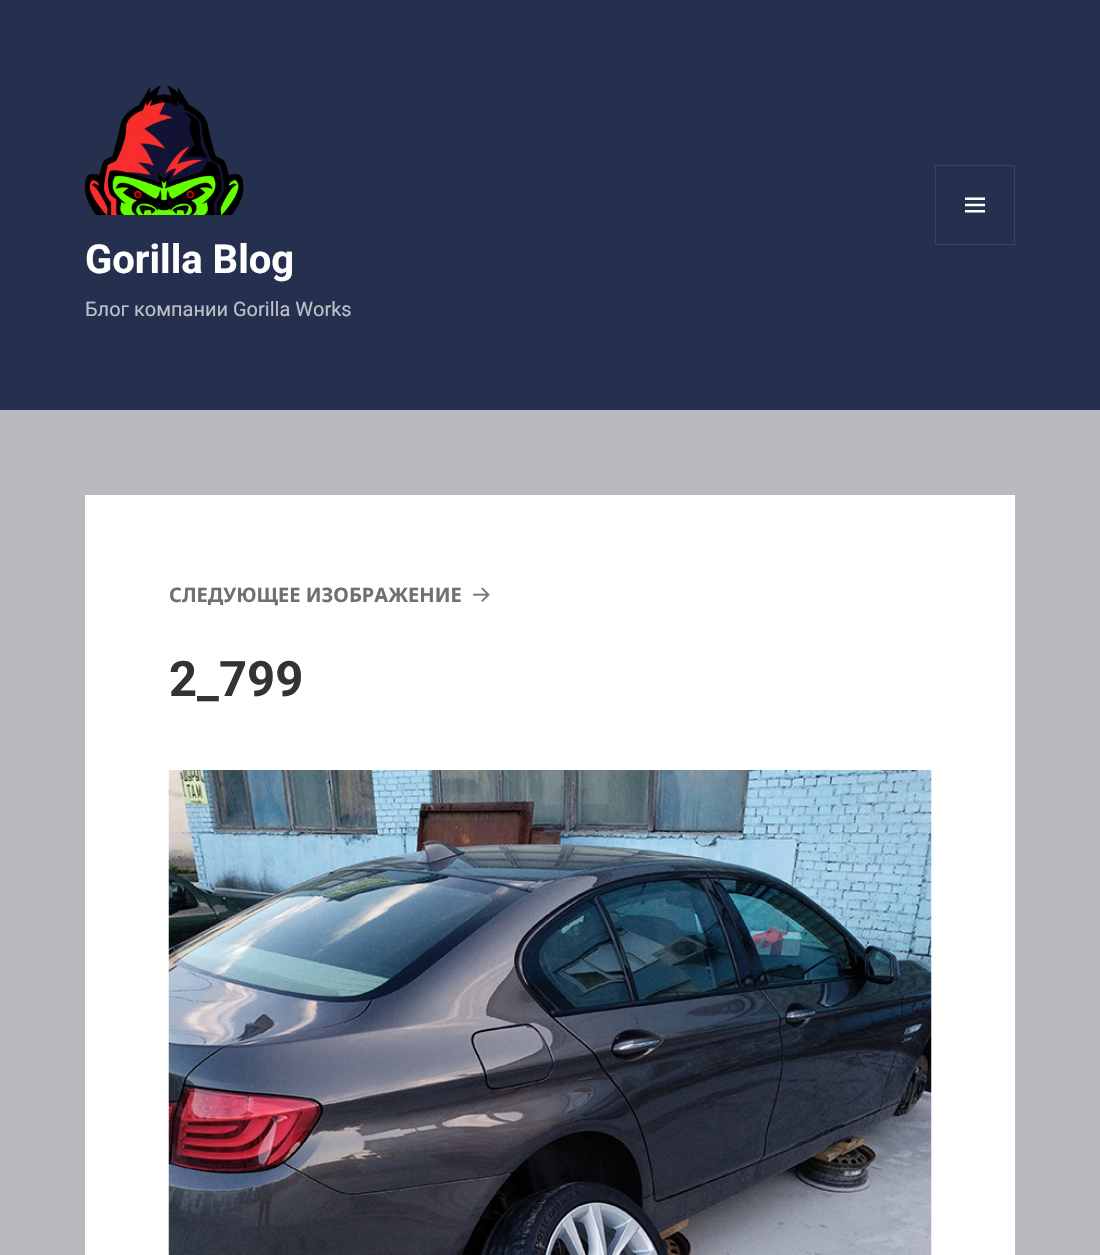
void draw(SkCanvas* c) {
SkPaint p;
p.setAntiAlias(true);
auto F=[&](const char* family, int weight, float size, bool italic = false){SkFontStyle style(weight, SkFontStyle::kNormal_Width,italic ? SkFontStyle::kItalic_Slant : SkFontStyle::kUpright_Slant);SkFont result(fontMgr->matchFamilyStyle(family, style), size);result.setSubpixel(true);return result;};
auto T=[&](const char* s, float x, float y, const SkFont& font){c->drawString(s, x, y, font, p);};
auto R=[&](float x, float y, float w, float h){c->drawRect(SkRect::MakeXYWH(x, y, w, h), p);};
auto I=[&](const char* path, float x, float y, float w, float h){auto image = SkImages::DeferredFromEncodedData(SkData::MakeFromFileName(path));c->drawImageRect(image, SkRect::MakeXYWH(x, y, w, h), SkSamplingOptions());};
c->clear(0xffb9babf);
p.setColor(0xff25304f);
R(0,0,1100,409);
p.setColor(0xff26304c);
R(0,409,1100,1);
I("1.png",85,85,159,130);
p.setStroke(true);
p.setStrokeWidth(1);
p.setColor(0xff3b4561);
c->drawRect(SkRect::MakeXYWH(935.5,165.5,79,79),p);
I("2.png",965,197,20,16);
auto f1 = F("Roboto",700,40);
p.setStroke(false);
p.setColor(0xffffffff);
T("Gorilla Blog",85,273,f1);
auto f2 = F("Roboto",400,20);
p.setColor(0xffbec1ca);
T("Блог компании Gorilla Works",85,316,f2);
p.setColor(0xffffffff);
R(85,495,930,760);
auto f3 = F("Noto Sans",700,20);
p.setColor(0xff707070);
T("СЛЕДУЮЩЕЕ ИЗОБРАЖЕНИЕ",169,602,f3);
I("3.png",473,587,17,15);
auto f4 = F("Roboto",700,49);
p.setColor(0xff333333);
T("2_799",169,696,f4);
I("4.png",168,770,764,485);
}
